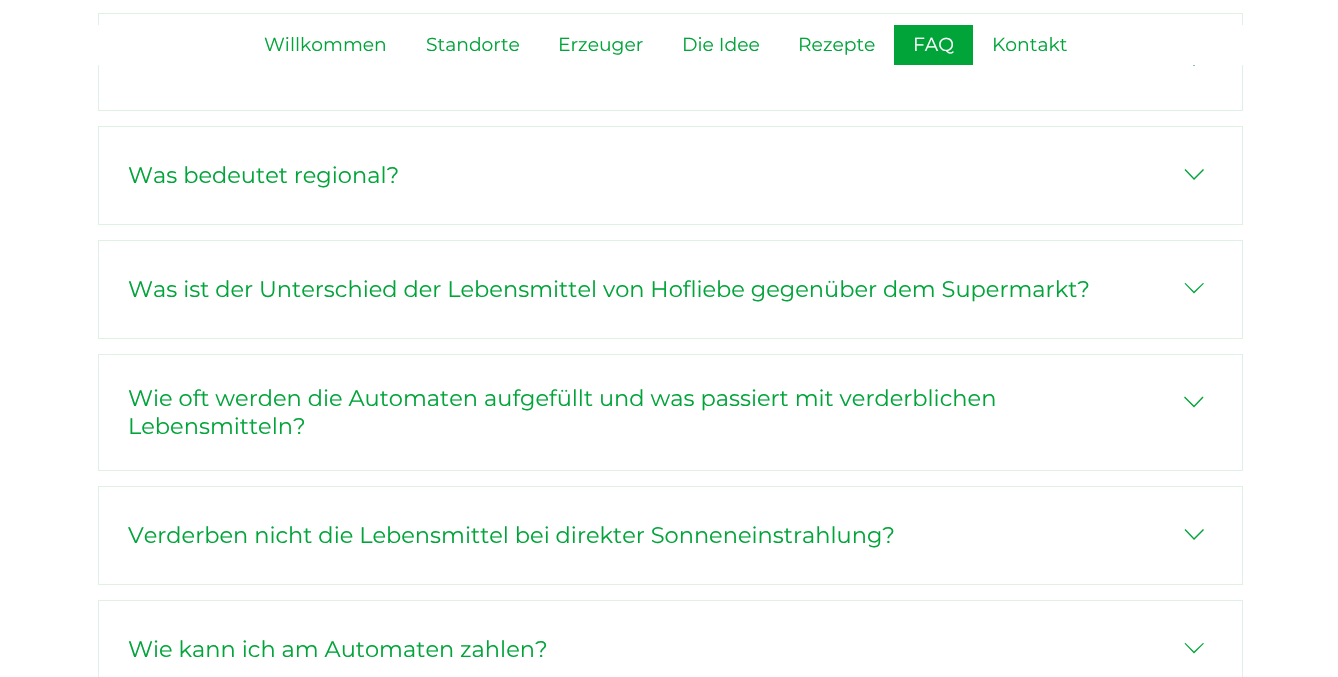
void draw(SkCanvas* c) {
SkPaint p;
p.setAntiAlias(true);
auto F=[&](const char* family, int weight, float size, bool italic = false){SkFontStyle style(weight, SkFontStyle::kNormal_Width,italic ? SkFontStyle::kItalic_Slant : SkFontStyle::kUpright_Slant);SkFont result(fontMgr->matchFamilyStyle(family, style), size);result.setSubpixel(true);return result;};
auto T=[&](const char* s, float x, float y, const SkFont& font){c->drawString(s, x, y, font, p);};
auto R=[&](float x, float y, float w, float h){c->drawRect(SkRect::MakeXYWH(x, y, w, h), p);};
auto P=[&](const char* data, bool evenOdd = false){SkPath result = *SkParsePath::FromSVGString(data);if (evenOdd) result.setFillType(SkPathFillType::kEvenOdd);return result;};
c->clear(0xffffffff);
p.setStroke(true);
p.setStrokeWidth(1);
p.setColor(0xffdff1e5);
c->drawRect(SkRect::MakeXYWH(98.5,13.5,1144,97),p);
p.setStroke(false);
p.setColor(0xff00a439);
c->drawPath(P("M1203 55.5l1 .5l-10 10l-9.5-10l1-.5l8.5 8.5z",true),p);
p.setColor(0xffffffff);
R(98,25,1145,40);
auto f1 = F("Montserrat",400,18.75);
p.setColor(0xff00a439);
T("Willkommen",264,51,f1);
T("Standorte",426,51,f1);
T("Erzeuger",558,51,f1);
T("Die Idee",682,51,f1);
T("Rezepte",798,51,f1);
R(894,25,79,40);
p.setColor(0xffffffff);
T("FAQ",913,51,f1);
p.setColor(0xff00a439);
T("Kontakt",992,51,f1);
p.setStroke(true);
p.setColor(0xffdff1e5);
c->drawRect(SkRect::MakeXYWH(98.5,126.5,1144,98),p);
auto f2 = F("Montserrat",400,22.5);
p.setStroke(false);
p.setColor(0xff00a439);
T("Was bedeutet regional?",128,183,f2);
c->drawPath(P("M1203 169l1 1l-10 10l-9.5-10l1-1l8.5 9z",true),p);
p.setStroke(true);
p.setColor(0xffdff1e5);
c->drawRect(SkRect::MakeXYWH(98.5,240.5,1144,98),p);
p.setStroke(false);
p.setColor(0xff00a439);
T("Was ist der Unterschied der Lebensmittel von Hofliebe gegenüber dem Supermarkt?",128,297,f2);
c->drawPath(P("M1203 283l1 .5l-10 10l-9.5-10l1-.5l8.5 8.5z",true),p);
p.setStroke(true);
p.setColor(0xffdff1e5);
c->drawRect(SkRect::MakeXYWH(98.5,354.5,1144,116),p);
p.setStroke(false);
p.setColor(0xff00a439);
T("Wie oft werden die Automaten aufgefüllt und was passiert mit verderblichen",128,406,f2);
T("Lebensmitteln?",128,434,f2);
c->drawPath(P("M1202.5 396.5l1 1l-9.5 10l-10-10l1-1l9 9z",true),p);
p.setStroke(true);
p.setColor(0xffdff1e5);
c->drawRect(SkRect::MakeXYWH(98.5,486.5,1144,98),p);
p.setStroke(false);
p.setColor(0xff00a439);
T("Verderben nicht die Lebensmittel bei direkter Sonneneinstrahlung?",128,543,f2);
c->drawPath(P("M1203 529l1 1l-10 10l-9.5-10l1-1l8.5 9z",true),p);
p.setStroke(true);
p.setColor(0xffdff1e5);
c->drawRect(SkRect::MakeXYWH(98.5,600.5,1144,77),p);
p.setStroke(false);
p.setColor(0xff00a439);
T("Wie kann ich am Automaten zahlen?",128,657,f2);
c->drawPath(P("M1203 643l1 .5l-10 10l-9.5-10l1-.5l8.5 8.5z",true),p);
}
